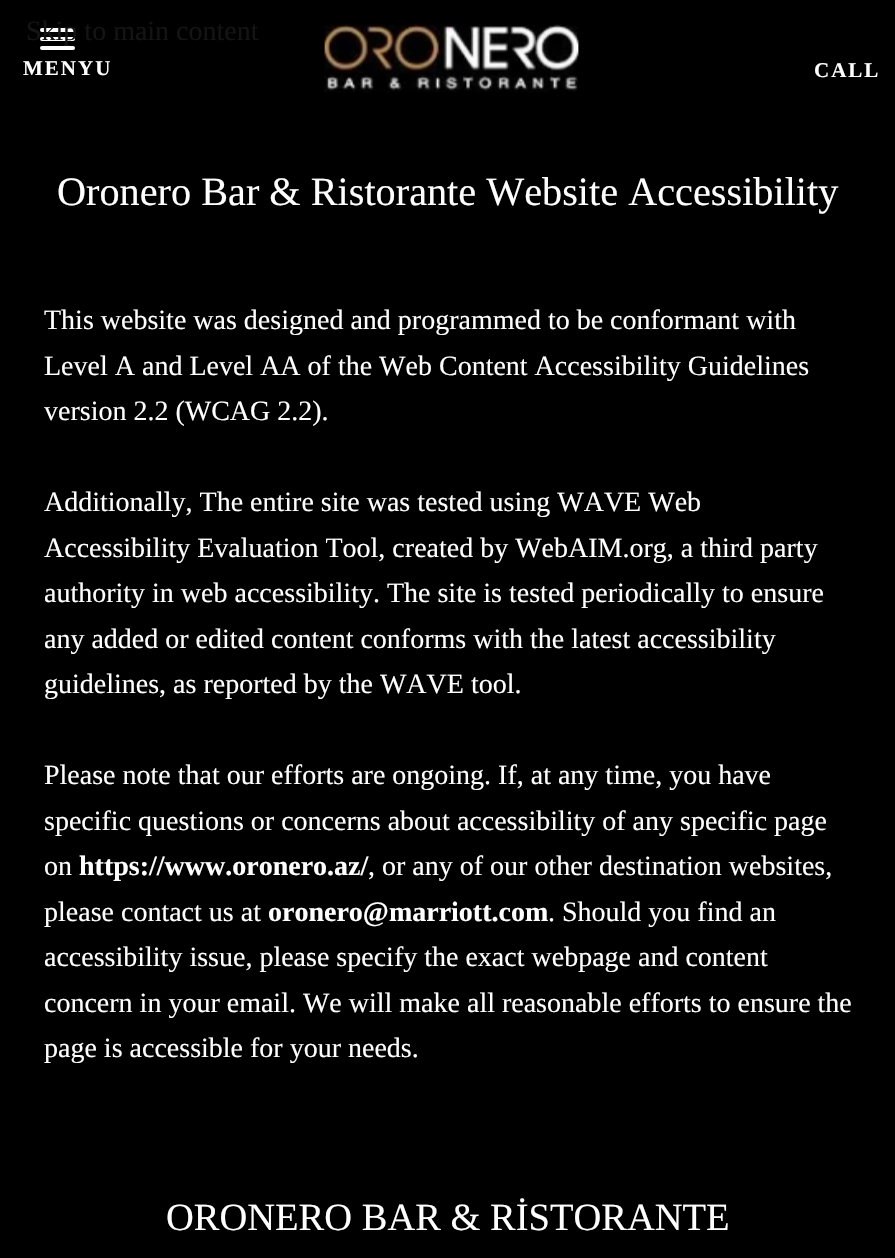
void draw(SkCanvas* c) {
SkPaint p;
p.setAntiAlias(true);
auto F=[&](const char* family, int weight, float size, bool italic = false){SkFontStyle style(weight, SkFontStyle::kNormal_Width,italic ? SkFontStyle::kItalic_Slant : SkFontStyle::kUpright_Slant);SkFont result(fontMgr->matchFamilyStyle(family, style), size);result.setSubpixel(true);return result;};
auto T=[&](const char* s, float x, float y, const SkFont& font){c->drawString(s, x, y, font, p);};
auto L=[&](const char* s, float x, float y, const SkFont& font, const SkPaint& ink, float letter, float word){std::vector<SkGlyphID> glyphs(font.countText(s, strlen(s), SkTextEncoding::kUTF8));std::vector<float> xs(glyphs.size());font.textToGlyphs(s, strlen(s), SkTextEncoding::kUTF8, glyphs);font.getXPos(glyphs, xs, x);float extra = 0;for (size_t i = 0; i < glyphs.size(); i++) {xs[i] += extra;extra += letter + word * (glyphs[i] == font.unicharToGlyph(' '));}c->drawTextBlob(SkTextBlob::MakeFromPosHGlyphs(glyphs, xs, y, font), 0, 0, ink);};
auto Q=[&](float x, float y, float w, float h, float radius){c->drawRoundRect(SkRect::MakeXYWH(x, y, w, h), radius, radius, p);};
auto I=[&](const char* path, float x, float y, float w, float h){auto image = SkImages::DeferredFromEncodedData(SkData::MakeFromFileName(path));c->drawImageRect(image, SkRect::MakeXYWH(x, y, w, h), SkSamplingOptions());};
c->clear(0xff000000);
p.setColor(0xffffffff);
Q(40,28,35,4,2);
Q(40,37,35,4,2);
auto f1 = F("Liberation Serif",400,28);
p.setColor(0xff141414);
T("Skip to main content",26,40,f1);
p.setColor(0xffffffff);
Q(40,46,35,4,2);
auto f2 = F("Liberation Serif",700,21);
L("MENYU",23,75,f2,p,2,0);
I("1.png",324,24,255,69);
L("CALL",814,77,f2,p,2,0);
auto f3 = F("Liberation Serif",400,40.25);
T("Oronero Bar & Ristorante Website Accessibility",57,205,f3);
T("This website was designed and programmed to be conformant with",44,329,f1);
T("Level A and Level AA of the Web Content Accessibility Guidelines",44,375,f1);
T("version 2.2 (WCAG 2.2).",44,420,f1);
T("Additionally, The entire site was tested using WAVE Web",44,511,f1);
T("Accessibility Evaluation Tool, created by WebAIM.org, a third party",44,557,f1);
T("authority in web accessibility. The site is tested periodically to ensure",44,602,f1);
T("any added or edited content conforms with the latest accessibility",44,648,f1);
T("guidelines, as reported by the WAVE tool.",44,693,f1);
T("Please note that our efforts are ongoing. If, at any time, you have",44,784,f1);
T("specific questions or concerns about accessibility of any specific page",44,830,f1);
T("on",44,875,f1);
auto f4 = F("Liberation Serif",700,28);
T("https://www.oronero.az/",79,875,f4);
T(", or any of our other destination websites,",368,875,f1);
T("please contact us at",44,921,f1);
T("oronero@marriott.com",268,921,f4);
T(". Should you find an",548,921,f1);
T("accessibility issue, please specify the exact webpage and content",44,966,f1);
T("concern in your email. We will make all reasonable efforts to ensure the",44,1012,f1);
T("page is accessible for your needs.",44,1057,f1);
auto f5 = F("Liberation Serif",400,38.5);
T("ORONERO BAR & RİSTORANTE",166,1230,f5);
}
